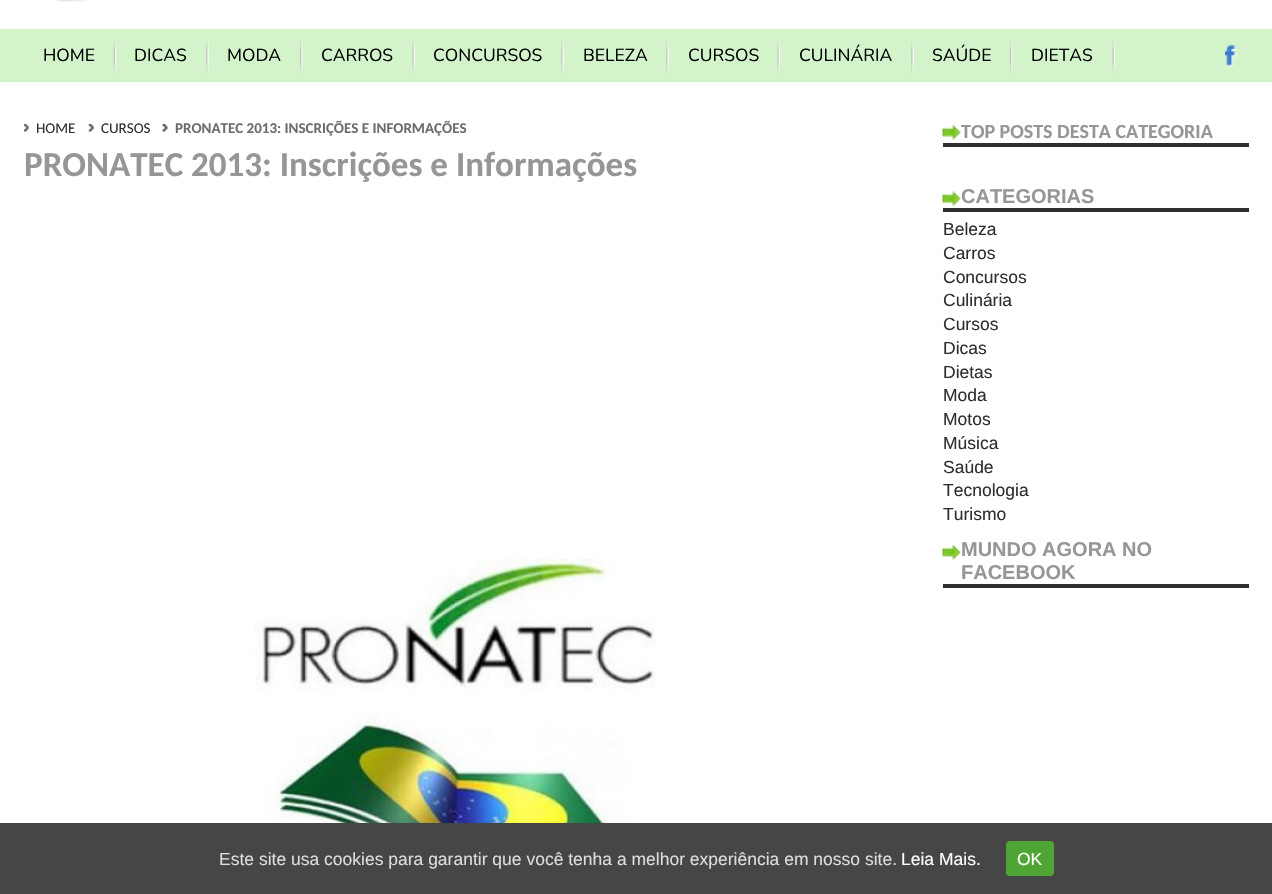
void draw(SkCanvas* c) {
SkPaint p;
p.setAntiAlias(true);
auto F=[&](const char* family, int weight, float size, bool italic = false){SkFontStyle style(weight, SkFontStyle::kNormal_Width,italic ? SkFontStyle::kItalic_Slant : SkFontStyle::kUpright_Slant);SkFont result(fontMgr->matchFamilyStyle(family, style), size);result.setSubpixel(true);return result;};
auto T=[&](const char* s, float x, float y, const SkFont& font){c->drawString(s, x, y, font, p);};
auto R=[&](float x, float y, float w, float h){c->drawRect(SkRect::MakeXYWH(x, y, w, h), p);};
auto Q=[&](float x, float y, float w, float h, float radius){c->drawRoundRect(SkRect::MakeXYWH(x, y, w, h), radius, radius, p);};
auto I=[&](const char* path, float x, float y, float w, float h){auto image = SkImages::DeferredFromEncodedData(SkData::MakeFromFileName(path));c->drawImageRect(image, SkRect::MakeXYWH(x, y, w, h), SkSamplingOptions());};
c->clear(0xffffffff);
I("1.png",53,0,38,2);
p.setColor(0xffd3f3cb);
R(0,29,1272,53);
I("2.png",113,40,4,34);
auto f1 = F("Nunito",200,17.5);
p.setColor(0xff000000);
T("HOME",43,61,f1);
I("3.png",206,40,3,34);
T("DICAS",134,61,f1);
I("4.png",300,39,3,35);
T("MODA",227,61,f1);
I("5.png",412,39,3,35);
T("CARROS",321,61,f1);
I("3.png",561,40,3,34);
T("CONCURSOS",433,61,f1);
I("3.png",666,40,3,34);
T("BELEZA",583,61,f1);
I("5.png",777,39,3,35);
T("CURSOS",688,61,f1);
I("3.png",911,40,3,34);
T("CULINÁRIA",799,61,f1);
I("4.png",1010,39,3,35);
T("SAÚDE",932,61,f1);
I("5.png",1112,39,3,35);
T("DIETAS",1031,61,f1);
I("6.png",1225,45,12,22);
I("7.png",23,124,6,8);
auto f2 = F("Carlito",400,15);
p.setColor(0xff2e2e2e);
T("HOME",36,133,f2);
I("8.png",88,124,6,8);
T("CURSOS",101,133,f2);
I("9.png",162,124,6,8);
auto f3 = F("Carlito",700,15);
p.setColor(0xff6d6d6d);
T("PRONATEC 2013: INSCRIÇÕES E INFORMAÇÕES",175,133,f3);
auto f4 = F("Carlito",700,35);
p.setColor(0xff969696);
T("PRONATEC 2013: Inscrições e Informações",24,176,f4);
I("10.png",255,559,401,264);
I("11.png",942,125,20,16);
p.setColor(0xff2e2e2e);
R(943,143,306,4);
auto f5 = F("Carlito",700,20);
p.setColor(0xff969696);
T("TOP POSTS DESTA CATEGORIA",961,138,f5);
I("12.png",942,191,20,16);
p.setColor(0xff2e2e2e);
R(943,208,306,4);
auto f6 = F("Liberation Sans",700,20);
p.setColor(0xff969696);
T("CATEGORIAS",961,203,f6);
auto f7 = F("Liberation Sans",400,17.5);
p.setColor(0xff2e2e2e);
T("Beleza",943,235,f7);
T("Carros",943,259,f7);
T("Concursos",943,283,f7);
T("Culinária",943,306,f7);
T("Cursos",943,330,f7);
T("Dicas",943,354,f7);
T("Dietas",943,378,f7);
T("Moda",943,401,f7);
T("Motos",943,425,f7);
T("Música",943,449,f7);
T("Saúde",943,473,f7);
T("Tecnologia",943,496,f7);
T("Turismo",943,520,f7);
I("11.png",942,545,20,16);
R(943,584,306,4);
p.setColor(0xff969696);
T("MUNDO AGORA NO",961,556,f6);
T("FACEBOOK",961,579,f6);
p.setColor(0xff464646);
R(0,823,1272,71);
p.setColor(0xffdddddd);
T("Este site usa cookies para garantir que você tenha a melhor experiência em nosso site.",219,865,f7);
p.setColor(0xffffffff);
T("Leia Mais.",901,865,f7);
p.setColor(0xff4fa533);
Q(1006,841,48,35,4);
p.setColor(0xffffffff);
T("OK",1017,865,f7);
}
